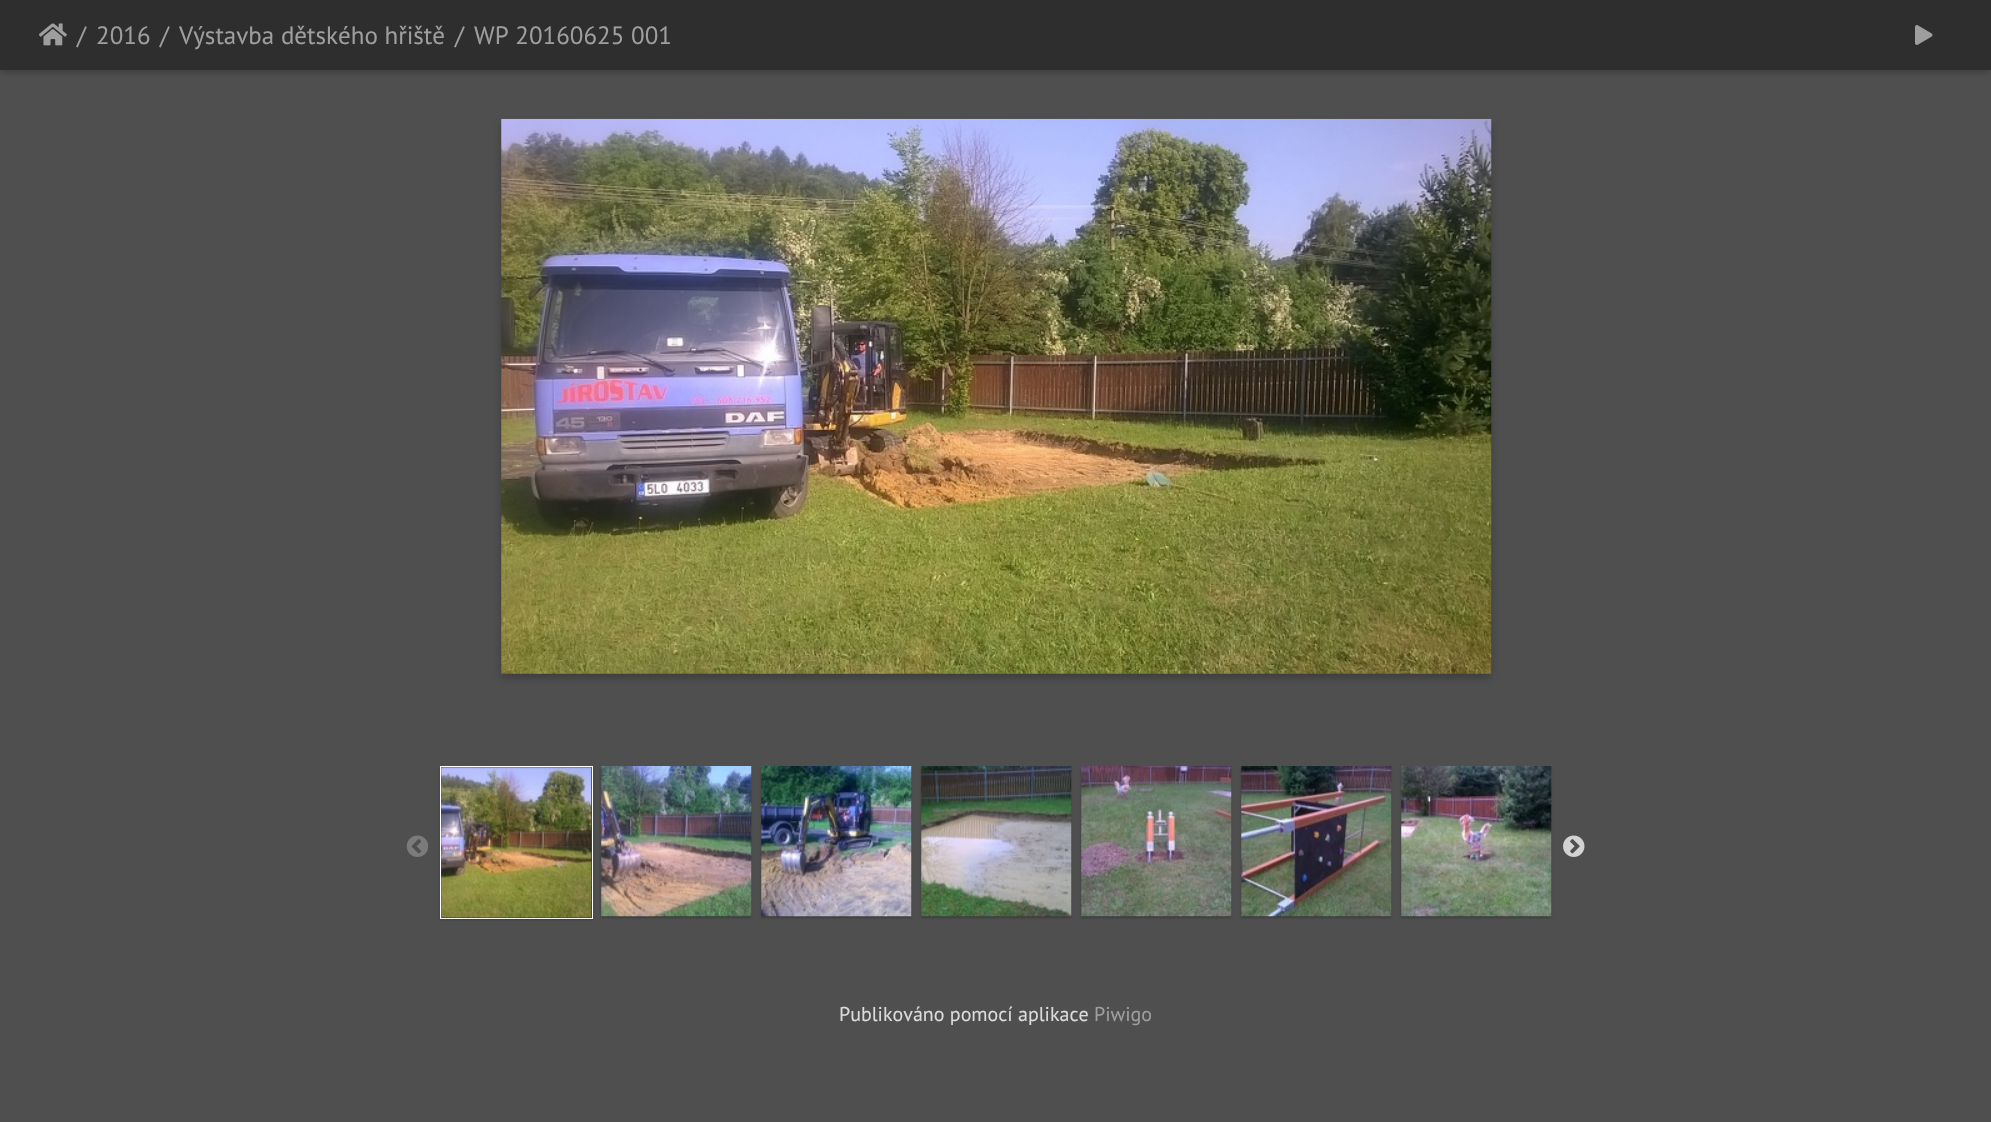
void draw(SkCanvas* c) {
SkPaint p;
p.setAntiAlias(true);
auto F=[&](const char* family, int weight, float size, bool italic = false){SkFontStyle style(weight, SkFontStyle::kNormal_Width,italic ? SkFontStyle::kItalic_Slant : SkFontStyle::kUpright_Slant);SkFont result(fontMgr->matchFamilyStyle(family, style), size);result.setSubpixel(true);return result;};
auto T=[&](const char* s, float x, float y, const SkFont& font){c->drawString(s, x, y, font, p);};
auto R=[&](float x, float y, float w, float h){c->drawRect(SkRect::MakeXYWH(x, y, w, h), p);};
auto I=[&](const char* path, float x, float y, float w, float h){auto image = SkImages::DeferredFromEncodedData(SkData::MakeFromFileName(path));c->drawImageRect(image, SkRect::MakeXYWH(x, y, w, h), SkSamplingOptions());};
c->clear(0xff4f4f4f);
p.setColor(0x33000000);
p.setMaskFilter(SkMaskFilter::MakeBlur(kNormal_SkBlurStyle, 3));
c->drawRect(SkRect::MakeXYWH(1,5,1989,68),p);
p.setMaskFilter(nullptr);
p.setColor(0xff2e2e2e);
R(0,0,1991,70);
I("1.png",39,23,28,23);
auto f1 = F("PT Sans",400,25);
p.setColor(0xff9e9e9e);
T("/",77,44,f1);
T("2016",96,44,f1);
T("/",160,44,f1);
T("Výstavba dětského hřiště",179,44,f1);
T("/",455,44,f1);
T("WP 20160625 001",474,44,f1);
I("2.png",1915,25,18,20);
p.setColor(0x3b000000);
p.setMaskFilter(SkMaskFilter::MakeBlur(kNormal_SkBlurStyle, 4));
c->drawRect(SkRect::MakeXYWH(501,123,990,555),p);
p.setMaskFilter(nullptr);
I("3.png",501,118,991,556);
I("4.png",406,835,23,22);
p.setColor(0x3d000000);
p.setMaskFilter(SkMaskFilter::MakeBlur(kNormal_SkBlurStyle, 1));
c->drawRect(SkRect::MakeXYWH(440,768,153,152),p);
p.setMaskFilter(nullptr);
p.setStroke(true);
p.setStrokeWidth(1);
p.setColor(0xffffffff);
c->drawRect(SkRect::MakeXYWH(440.5,766.5,152,152),p);
I("5.png",441,767,151,152);
p.setStroke(false);
p.setColor(0x3d000000);
p.setMaskFilter(SkMaskFilter::MakeBlur(kNormal_SkBlurStyle, 1));
c->drawRect(SkRect::MakeXYWH(601,768,150,150),p);
p.setMaskFilter(nullptr);
I("6.png",601,766,151,151);
p.setMaskFilter(SkMaskFilter::MakeBlur(kNormal_SkBlurStyle, 1));
c->drawRect(SkRect::MakeXYWH(761,768,150,150),p);
p.setMaskFilter(nullptr);
I("7.png",761,766,151,151);
p.setMaskFilter(SkMaskFilter::MakeBlur(kNormal_SkBlurStyle, 1));
c->drawRect(SkRect::MakeXYWH(921,768,150,150),p);
p.setMaskFilter(nullptr);
I("8.png",921,766,151,151);
p.setMaskFilter(SkMaskFilter::MakeBlur(kNormal_SkBlurStyle, 1));
c->drawRect(SkRect::MakeXYWH(1081,768,150,150),p);
p.setMaskFilter(nullptr);
I("9.png",1081,766,151,151);
p.setMaskFilter(SkMaskFilter::MakeBlur(kNormal_SkBlurStyle, 1));
c->drawRect(SkRect::MakeXYWH(1241,768,150,150),p);
p.setMaskFilter(nullptr);
I("10.png",1241,766,151,151);
p.setMaskFilter(SkMaskFilter::MakeBlur(kNormal_SkBlurStyle, 1));
c->drawRect(SkRect::MakeXYWH(1401,768,150,150),p);
p.setMaskFilter(nullptr);
I("11.png",1401,766,151,151);
I("12.png",1563,835,22,22);
auto f2 = F("PT Sans",400,20);
p.setColor(0xffdbdbdb);
T("Publikováno pomocí aplikace",839,1021,f2);
p.setColor(0xff9e9e9e);
T("Piwigo",1094,1021,f2);
}
